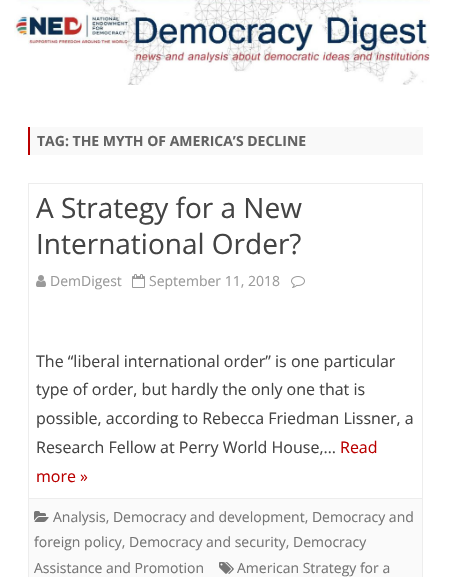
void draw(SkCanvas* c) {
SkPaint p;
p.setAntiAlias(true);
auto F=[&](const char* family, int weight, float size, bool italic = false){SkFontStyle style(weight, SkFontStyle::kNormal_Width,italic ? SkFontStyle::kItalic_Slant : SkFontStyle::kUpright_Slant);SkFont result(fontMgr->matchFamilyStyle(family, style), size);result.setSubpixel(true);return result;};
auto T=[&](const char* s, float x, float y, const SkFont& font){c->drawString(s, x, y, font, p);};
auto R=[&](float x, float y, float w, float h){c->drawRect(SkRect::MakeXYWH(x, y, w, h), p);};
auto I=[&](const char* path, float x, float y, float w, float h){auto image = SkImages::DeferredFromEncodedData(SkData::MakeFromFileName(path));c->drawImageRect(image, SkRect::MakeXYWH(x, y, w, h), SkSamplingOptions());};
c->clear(0xffffffff);
I("1.png",14,0,416,85);
p.setColor(0xfff9f9f9);
R(30,127,393,28);
p.setColor(0xffba0000);
R(28,127,2,28);
auto f1 = F("Open Sans",700,14);
p.setColor(0xff636363);
T("TAG: THE MYTH OF AMERICA’S DECLINE",37,146,f1);
p.setStroke(true);
p.setStrokeWidth(1);
p.setColor(0xffededed);
c->drawRect(SkRect::MakeXYWH(28.5,183.5,394,315),p);
auto f2 = F("Open Sans",400,28);
p.setStroke(false);
p.setColor(0xff444444);
T("A Strategy for a New",36,218,f2);
T("International Order?",36,254,f2);
I("2.png",36,275,10,12);
auto f3 = F("Open Sans",400,14);
p.setColor(0xff9a9a9a);
T("DemDigest",50,286,f3);
I("3.png",132,274,13,14);
T("September 11, 2018",149,286,f3);
I("4.png",291,276,14,12);
auto f4 = F("Open Sans",400,16);
p.setColor(0xff444444);
T("The “liberal international order” is one particular",36,367,f4);
T("type of order, but hardly the only one that is",36,395,f4);
T("possible, according to Rebecca Friedman Lissner, a",36,424,f4);
T("Research Fellow at Perry World House,…",36,453,f4);
p.setColor(0xffba0000);
T("Read",340,453,f4);
T("more »",36,482,f4);
p.setColor(0xfffafafa);
R(29,499,393,78);
p.setColor(0xffededed);
R(422,499,1,78);
R(28,499,1,78);
I("5.png",34,511,15,11);
p.setColor(0xff757575);
T("Analysis, Democracy and development, Democracy and",53,522,f3);
T("foreign policy, Democracy and security, Democracy",34,547,f3);
T("Assistance and Promotion",34,573,f3);
I("6.png",219,562,15,12);
T("American Strategy for a",237,573,f3);
}
